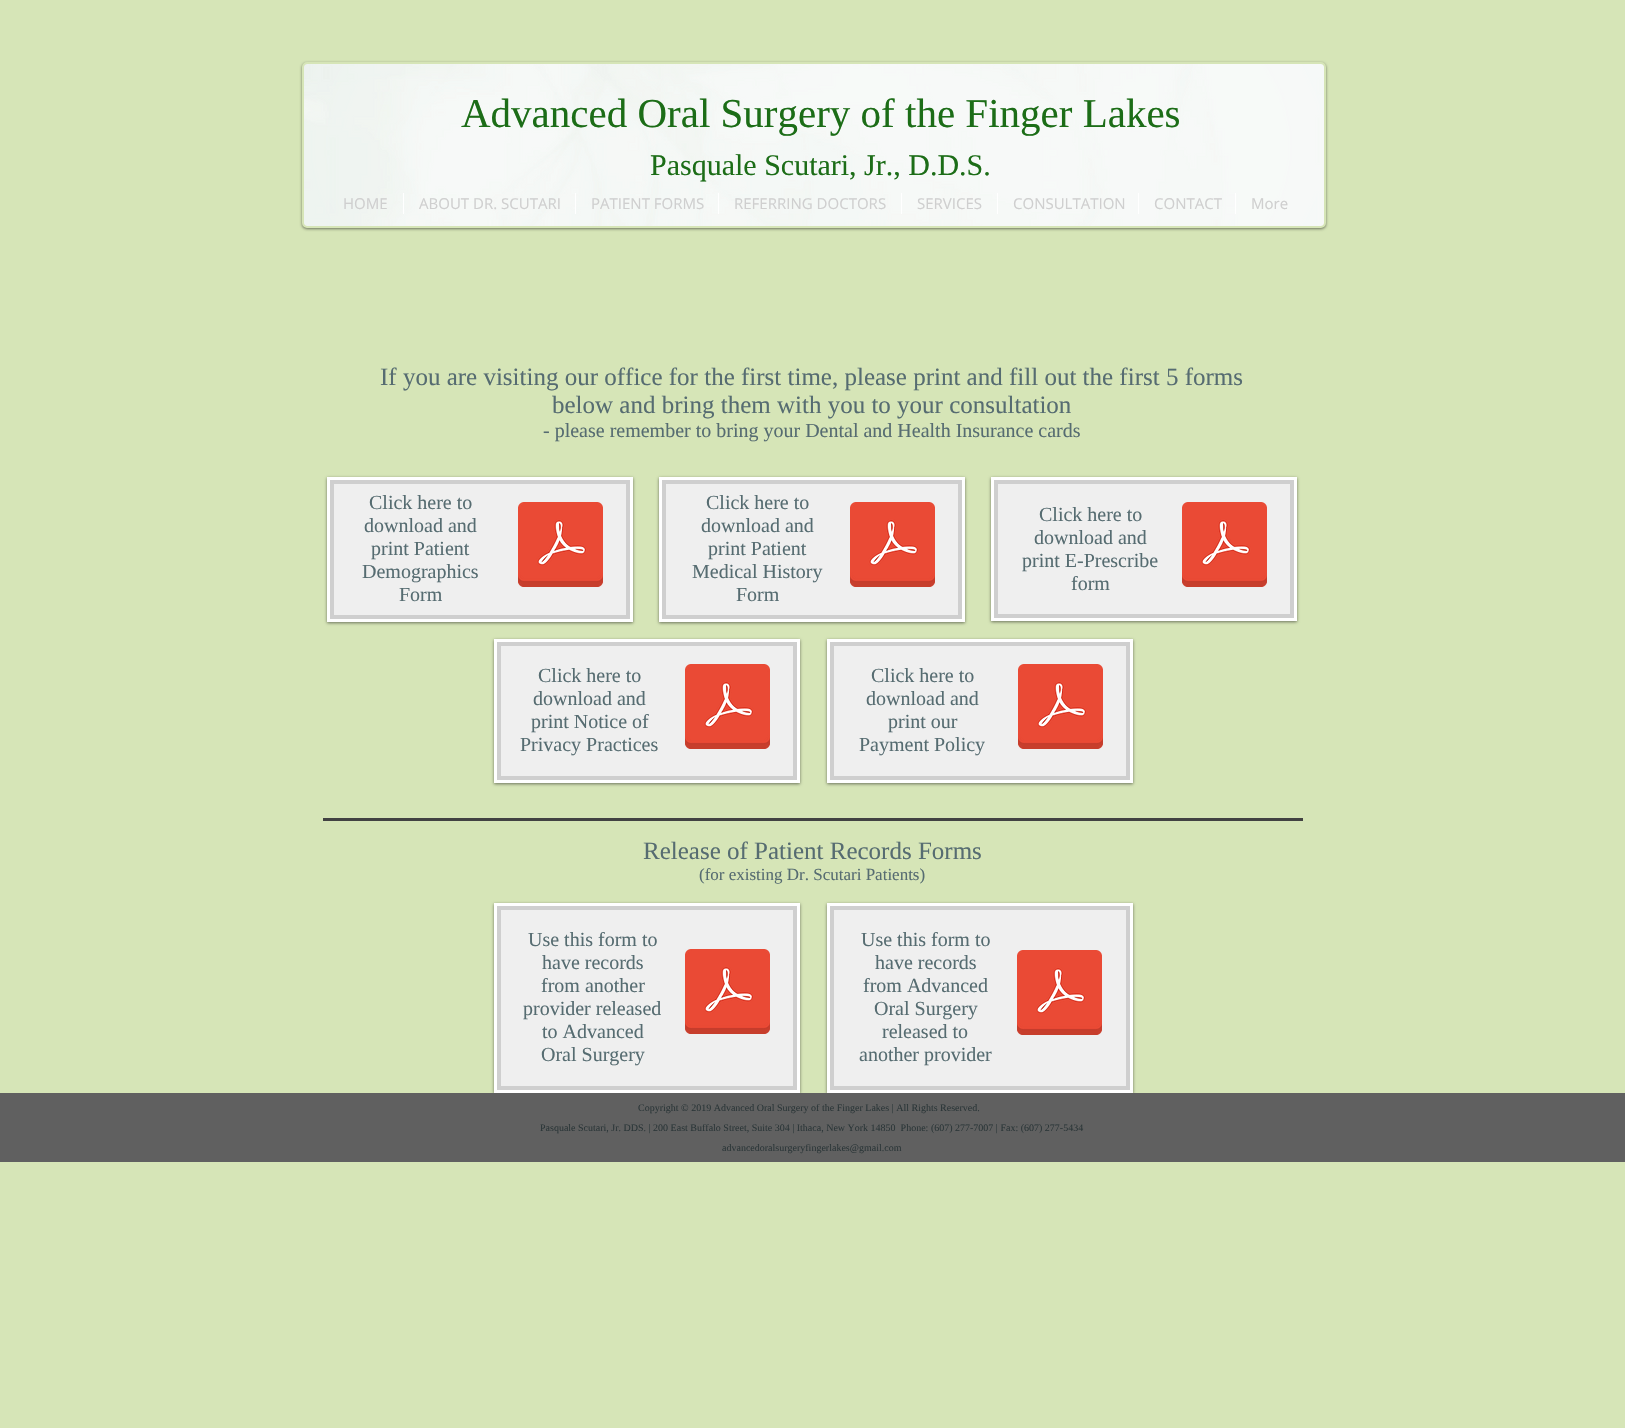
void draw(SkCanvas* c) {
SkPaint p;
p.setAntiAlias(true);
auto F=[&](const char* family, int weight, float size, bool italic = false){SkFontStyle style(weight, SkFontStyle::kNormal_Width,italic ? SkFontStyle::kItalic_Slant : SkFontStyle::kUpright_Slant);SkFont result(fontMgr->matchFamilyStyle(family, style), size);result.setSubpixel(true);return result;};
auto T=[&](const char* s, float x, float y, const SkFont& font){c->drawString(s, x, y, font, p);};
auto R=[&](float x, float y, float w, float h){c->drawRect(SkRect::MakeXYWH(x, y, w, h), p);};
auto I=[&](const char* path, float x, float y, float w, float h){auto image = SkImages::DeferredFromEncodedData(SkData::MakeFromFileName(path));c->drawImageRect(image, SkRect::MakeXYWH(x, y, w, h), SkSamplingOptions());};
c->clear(0xffd6e5b7);
p.setColor(0x80000000);
p.setMaskFilter(SkMaskFilter::MakeBlur(kNormal_SkBlurStyle, 1.5));
c->drawRoundRect(SkRect::MakeXYWH(302,63,1024,166),5,5,p);
p.setMaskFilter(nullptr);
p.setColor(0xffd6e5b7);
c->drawRoundRect(SkRect::MakeXYWH(303,63,1022,164),4,4,p);
p.setStroke(true);
p.setStrokeWidth(2);
c->drawRoundRect(SkRect::MakeXYWH(303,63,1022,164),4,4,p);
I("1.png",304,64,1020,162);
auto f1 = F("Liberation Serif",400,41);
p.setStroke(false);
p.setColor(0xff1c6d17);
T("Advanced Oral Surgery of the Finger Lakes",461,127,f1);
auto f2 = F("Liberation Serif",400,30);
T("Pasquale Scutari, Jr., D.D.S.",650,175,f2);
auto f3 = F("Open Sans",400,15);
p.setColor(0xffcfcfcf);
T("HOME",343,209,f3);
p.setColor(0xffffffff);
R(403,193,1,21);
p.setColor(0xffcfcfcf);
T("ABOUT DR. SCUTARI",419,209,f3);
p.setColor(0xffffffff);
R(575,193,1,21);
p.setColor(0xffcfcfcf);
T("PATIENT FORMS",591,209,f3);
p.setColor(0xffffffff);
R(718,193,1,21);
p.setColor(0xffcfcfcf);
T("REFERRING DOCTORS",734,209,f3);
p.setColor(0xffffffff);
R(901,193,1,21);
p.setColor(0xffcfcfcf);
T("SERVICES",917,209,f3);
p.setColor(0xffffffff);
R(997,193,1,21);
p.setColor(0xffcfcfcf);
T("CONSULTATION",1013,209,f3);
p.setColor(0xffffffff);
R(1138,193,1,21);
p.setColor(0xffcfcfcf);
T("CONTACT",1154,209,f3);
p.setColor(0xffffffff);
R(1235,193,1,21);
p.setColor(0xffcfcfcf);
T("More",1251,209,f3);
auto f4 = F("Liberation Serif",400,25);
p.setColor(0xff566c71);
T("If you are visiting our office for the first time, please print and fill out the first 5 forms",380,385,f4);
T("below and bring them with you to your consultation",552,413,f4);
auto f5 = F("Liberation Serif",400,20);
T("- please remember to bring your Dental and Health Insurance cards",543,437,f5);
p.setColor(0x80000000);
p.setMaskFilter(SkMaskFilter::MakeBlur(kNormal_SkBlurStyle, 1.5));
c->drawRect(SkRect::MakeXYWH(327,478,306,145),p);
p.setMaskFilter(nullptr);
p.setColor(0xffcfcfcf);
c->drawRect(SkRect::MakeXYWH(328.5,478.5,303,142),p);
p.setStroke(true);
p.setStrokeWidth(3);
p.setColor(0xffffffff);
c->drawRect(SkRect::MakeXYWH(328.5,478.5,303,142),p);
p.setStroke(false);
p.setColor(0xffefefef);
R(334,484,292,131);
p.setColor(0xff566c71);
T("Click here to",369,509,f5);
T("download and",364,532,f5);
T("print Patient",371,555,f5);
T("Demographics",362,578,f5);
T("Form",399,601,f5);
I("2.png",518,502,85,85);
p.setColor(0x80000000);
p.setMaskFilter(SkMaskFilter::MakeBlur(kNormal_SkBlurStyle, 1.5));
c->drawRect(SkRect::MakeXYWH(659,478,306,145),p);
p.setMaskFilter(nullptr);
p.setColor(0xffcfcfcf);
c->drawRect(SkRect::MakeXYWH(660.5,478.5,303,142),p);
p.setStroke(true);
p.setColor(0xffffffff);
c->drawRect(SkRect::MakeXYWH(660.5,478.5,303,142),p);
p.setStroke(false);
p.setColor(0xffefefef);
R(666,484,292,131);
p.setColor(0xff566c71);
T("Click here to",706,509,f5);
T("download and",701,532,f5);
T("print Patient",708,555,f5);
T("Medical History",692,578,f5);
T("Form",736,601,f5);
I("2.png",850,502,85,85);
p.setColor(0x80000000);
p.setMaskFilter(SkMaskFilter::MakeBlur(kNormal_SkBlurStyle, 1.5));
c->drawRect(SkRect::MakeXYWH(991,478,306,144),p);
p.setMaskFilter(nullptr);
p.setColor(0xffcfcfcf);
c->drawRect(SkRect::MakeXYWH(992.5,478.5,303,141),p);
p.setStroke(true);
p.setColor(0xffffffff);
c->drawRect(SkRect::MakeXYWH(992.5,478.5,303,141),p);
p.setStroke(false);
p.setColor(0xffefefef);
R(998,484,292,130);
p.setColor(0xff566c71);
T("Click here to",1039,521,f5);
T("download and",1034,544,f5);
T("print E-Prescribe",1022,567,f5);
T("form",1071,590,f5);
I("2.png",1182,502,85,85);
p.setColor(0x80000000);
p.setMaskFilter(SkMaskFilter::MakeBlur(kNormal_SkBlurStyle, 1.5));
c->drawRect(SkRect::MakeXYWH(494,640,306,144),p);
p.setMaskFilter(nullptr);
p.setColor(0xffcfcfcf);
c->drawRect(SkRect::MakeXYWH(495.5,640.5,303,141),p);
p.setStroke(true);
p.setColor(0xffffffff);
c->drawRect(SkRect::MakeXYWH(495.5,640.5,303,141),p);
p.setStroke(false);
p.setColor(0xffefefef);
R(501,646,292,130);
p.setColor(0xff566c71);
T("Click here to",538,682,f5);
T("download and",533,705,f5);
T("print Notice of",531,728,f5);
T("Privacy Practices",520,751,f5);
I("2.png",685,664,85,85);
p.setColor(0x80000000);
p.setMaskFilter(SkMaskFilter::MakeBlur(kNormal_SkBlurStyle, 1.5));
c->drawRect(SkRect::MakeXYWH(827,640,306,144),p);
p.setMaskFilter(nullptr);
p.setColor(0xffcfcfcf);
c->drawRect(SkRect::MakeXYWH(828.5,640.5,303,141),p);
p.setStroke(true);
p.setColor(0xffffffff);
c->drawRect(SkRect::MakeXYWH(828.5,640.5,303,141),p);
p.setStroke(false);
p.setColor(0xffefefef);
R(834,646,292,130);
p.setColor(0xff566c71);
T("Click here to",871,682,f5);
T("download and",866,705,f5);
T("print our",888,728,f5);
T("Payment Policy",859,751,f5);
I("2.png",1018,664,85,85);
p.setColor(0xff424242);
R(323,818,980,3);
p.setColor(0xff566c71);
T("Release of Patient Records Forms",643,859,f4);
auto f6 = F("Liberation Serif",400,17);
T("(for existing Dr. Scutari Patients)",699,880,f6);
p.setColor(0x80000000);
p.setMaskFilter(SkMaskFilter::MakeBlur(kNormal_SkBlurStyle, 1.5));
c->drawRect(SkRect::MakeXYWH(494,904,306,190),p);
p.setMaskFilter(nullptr);
p.setColor(0xffcfcfcf);
c->drawRect(SkRect::MakeXYWH(495.5,904.5,303,187),p);
p.setStroke(true);
p.setColor(0xffffffff);
c->drawRect(SkRect::MakeXYWH(495.5,904.5,303,187),p);
p.setStroke(false);
p.setColor(0xffefefef);
R(501,910,292,176);
p.setColor(0xff566c71);
T("Use this form to",528,946,f5);
T("have records",542,969,f5);
T("from another",541,992,f5);
T("provider released",523,1015,f5);
T("to Advanced",542,1038,f5);
T("Oral Surgery",541,1061,f5);
I("2.png",685,949,85,85);
p.setColor(0x80000000);
p.setMaskFilter(SkMaskFilter::MakeBlur(kNormal_SkBlurStyle, 1.5));
c->drawRect(SkRect::MakeXYWH(827,904,306,190),p);
p.setMaskFilter(nullptr);
p.setColor(0xffcfcfcf);
c->drawRect(SkRect::MakeXYWH(828.5,904.5,303,187),p);
p.setStroke(true);
p.setColor(0xffffffff);
c->drawRect(SkRect::MakeXYWH(828.5,904.5,303,187),p);
p.setStroke(false);
p.setColor(0xffefefef);
R(834,910,292,176);
p.setColor(0xff566c71);
T("Use this form to",861,946,f5);
T("have records",875,969,f5);
T("from Advanced",863,992,f5);
T("Oral Surgery",874,1015,f5);
T("released to",882,1038,f5);
T("another provider",859,1061,f5);
I("2.png",1017,950,85,85);
p.setColor(0xff606060);
R(0,1093,1625,69);
auto f7 = F("Liberation Serif",400,10);
p.setColor(0xff2b3638);
T("Copyright © 2019 Advanced Oral Surgery of the Finger Lakes | All Rights Reserved.",638,1111,f7);
T("Pasquale Scutari, Jr. DDS. | 200 East Buffalo Street, Suite 304 | Ithaca, New York 14850  Phone: (607) 277-7007 | Fax: (607) 277-5434",540,1131,f7);
T("advancedoralsurgeryfingerlakes@gmail.com",722,1151,f7);
}
